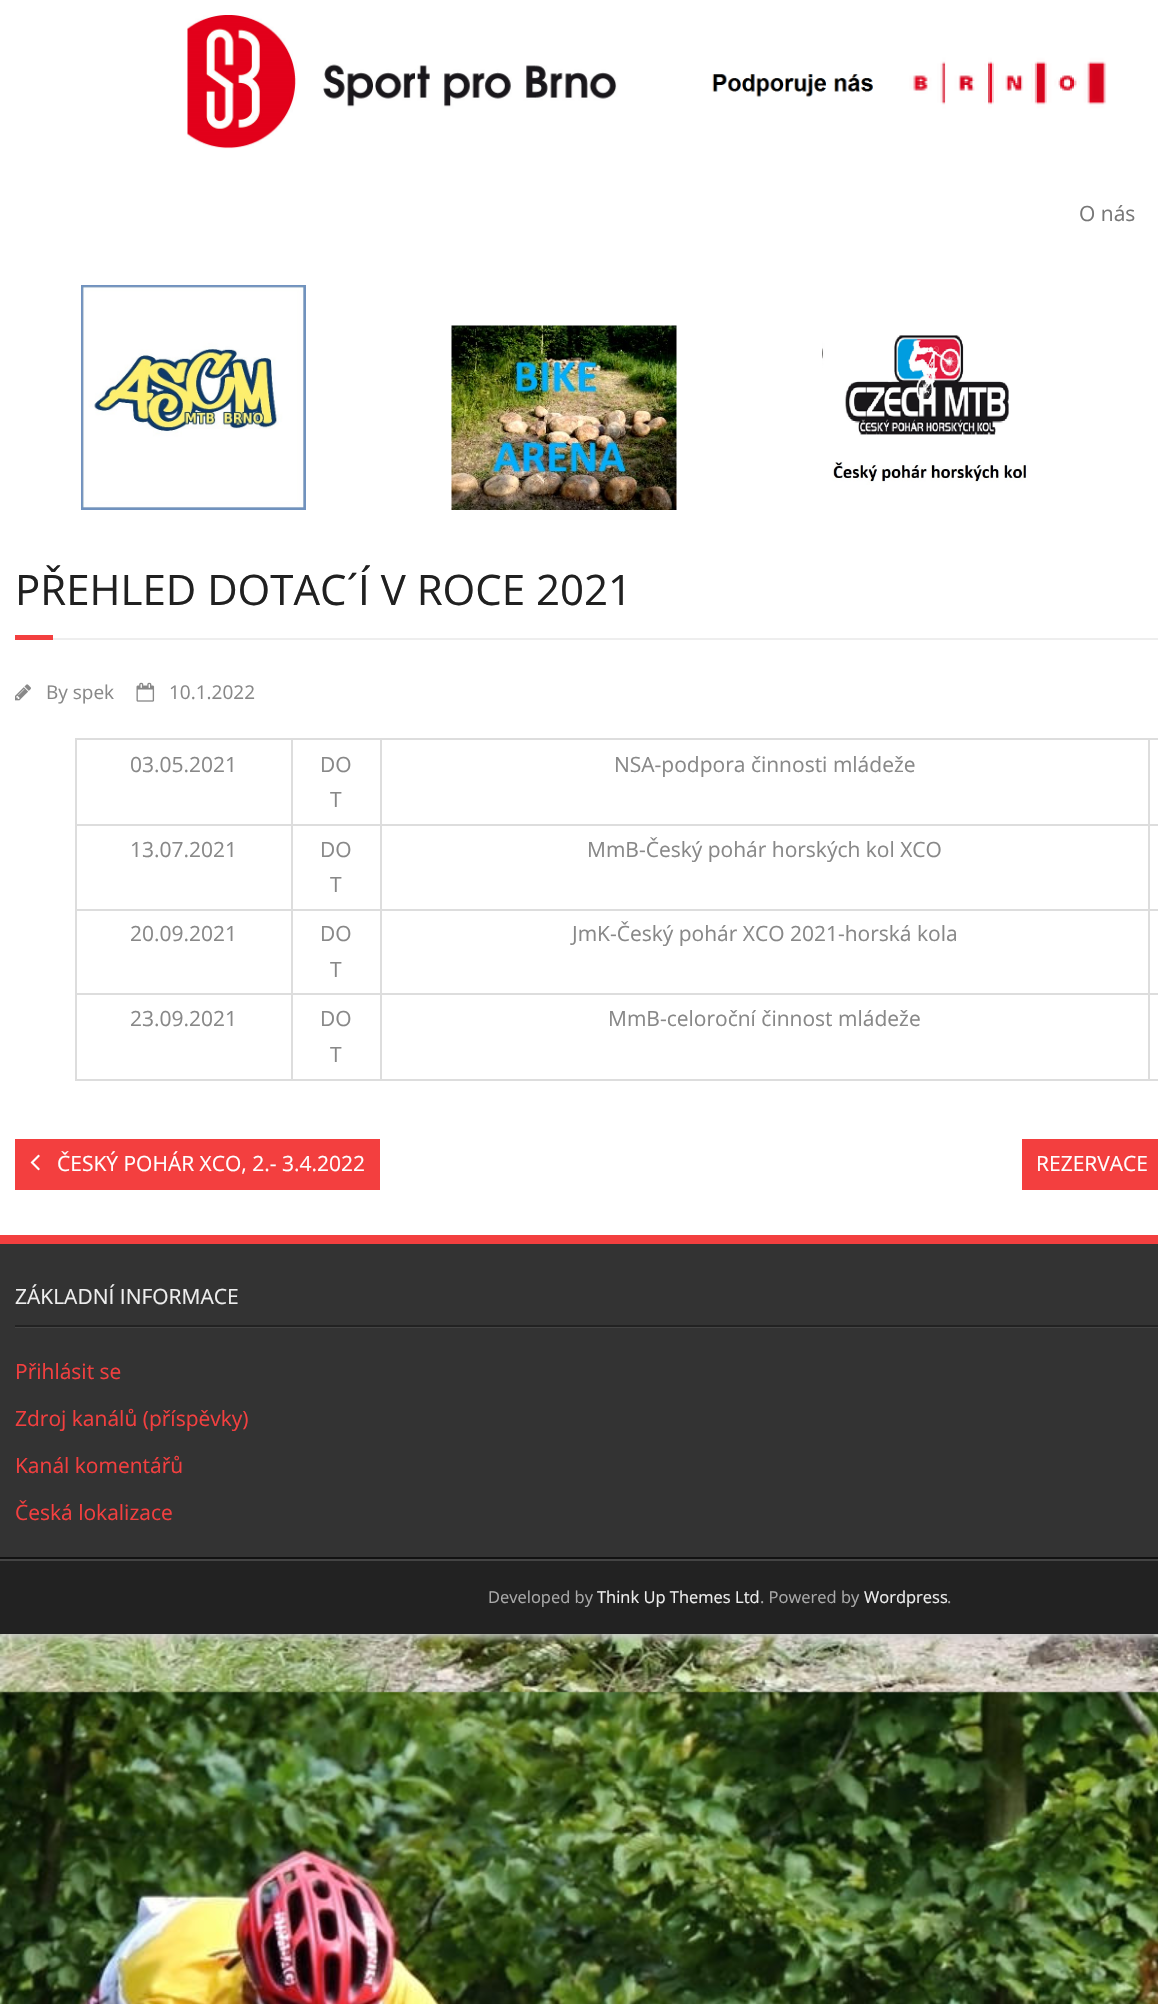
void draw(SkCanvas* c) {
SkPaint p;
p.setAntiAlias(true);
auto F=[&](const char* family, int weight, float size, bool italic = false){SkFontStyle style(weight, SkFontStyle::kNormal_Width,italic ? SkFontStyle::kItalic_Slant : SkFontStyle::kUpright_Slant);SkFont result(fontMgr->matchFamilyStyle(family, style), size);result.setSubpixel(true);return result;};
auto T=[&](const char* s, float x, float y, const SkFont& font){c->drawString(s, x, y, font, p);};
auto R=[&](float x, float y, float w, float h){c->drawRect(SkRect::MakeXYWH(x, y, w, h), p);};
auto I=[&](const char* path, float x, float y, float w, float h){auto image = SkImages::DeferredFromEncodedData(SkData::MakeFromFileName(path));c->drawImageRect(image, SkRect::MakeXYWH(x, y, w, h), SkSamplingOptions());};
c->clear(0xffffffff);
I("1.png",0,1634,1158,370);
p.setColor(0xffcccccc);
p.setMaskFilter(SkMaskFilter::MakeBlur(kNormal_SkBlurStyle, 4));
c->drawRect(SkRect::MakeXYWH(-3,-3,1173,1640),p);
p.setMaskFilter(nullptr);
p.setColor(0xffffffff);
R(0,0,1158,1235);
I("2.png",187,15,920,134);
auto f1 = F("Open Sans",400,21);
p.setColor(0xff777777);
T("O nás",1079,221,f1);
I("3.png",81,285,225,225);
I("4.png",451,325,226,185);
I("5.png",822,335,206,150);
auto f2 = F("Open Sans",400,42);
p.setColor(0xff202020);
T("PŘEHLED DOTAC´Í V ROCE 2021",15,605,f2);
p.setColor(0xfff33f3f);
R(15,635,38,5);
p.setColor(0xffeeeeee);
R(53,638,1105,2);
I("6.png",15,684,16,17);
auto f3 = F("Open Sans",400,19);
p.setColor(0xff888888);
T("By spek",46,699,f3);
I("7.png",136,682,19,20);
T("10.1.2022",169,699,f3);
p.setColor(0xffdddddd);
R(75,738,1083,2);
R(75,738,2,342);
R(1148,1079,10,2);
R(1148,993,2,87);
R(1148,993,10,2);
R(1148,909,2,86);
R(1148,909,10,2);
R(1148,824,2,87);
R(1148,824,10,2);
R(1148,738,2,87);
R(380,1079,769,2);
R(380,993,2,87);
R(380,993,769,2);
R(380,909,2,86);
R(380,909,769,2);
R(380,824,2,87);
R(380,824,769,2);
R(380,738,2,87);
R(291,1079,90,2);
R(291,993,2,87);
R(291,993,90,2);
R(291,909,2,86);
R(291,909,90,2);
R(291,824,2,87);
R(291,824,90,2);
R(291,738,2,87);
R(75,824,218,2);
p.setColor(0xff888888);
T("03.05.2021",130,772,f1);
T("DO",320,772,f1);
T("T",330,807,f1);
T("NSA-podpora činnosti mládeže",614,772,f1);
p.setColor(0xffdddddd);
R(75,909,218,2);
p.setColor(0xff888888);
T("13.07.2021",130,857,f1);
T("DO",320,857,f1);
T("T",330,892,f1);
T("MmB-Český pohár horských kol XCO",587,857,f1);
p.setColor(0xffdddddd);
R(75,993,218,2);
p.setColor(0xff888888);
T("20.09.2021",130,941,f1);
T("DO",320,941,f1);
T("T",330,977,f1);
T("JmK-Český pohár XCO 2021-horská kola",572,941,f1);
p.setColor(0xffdddddd);
R(75,1079,218,2);
p.setColor(0xff888888);
T("23.09.2021",130,1026,f1);
T("DO",320,1026,f1);
T("T",330,1062,f1);
T("MmB-celoroční činnost mládeže",608,1026,f1);
p.setColor(0xfff33f3f);
R(15,1139,365,51);
I("8.png",30,1154,10,17);
p.setColor(0xffffffff);
T("ČESKÝ POHÁR XCO, 2.- 3.4.2022",57,1171,f1);
p.setColor(0xfff33f3f);
R(1022,1139,136,51);
p.setColor(0xffffffff);
T("REZERVACE",1036,1171,f1);
p.setColor(0xff333333);
R(0,1244,1158,313);
p.setColor(0xfff33f3f);
R(0,1235,1158,9);
p.setColor(0xff111111);
R(0,1557,1158,2);
p.setColor(0xff444444);
R(15,1327,1143,1);
p.setColor(0xff222222);
R(15,1325,1143,2);
p.setColor(0xffeeeeee);
T("ZÁKLADNÍ INFORMACE",15,1304,f1);
p.setColor(0xfff33f3f);
T("Přihlásit se",15,1379,f1);
T("Zdroj kanálů (příspěvky)",15,1426,f1);
T("Kanál komentářů",15,1473,f1);
T("Česká lokalizace",15,1520,f1);
p.setColor(0xff222222);
R(0,1561,1158,73);
p.setColor(0xff444444);
R(0,1559,1158,2);
auto f4 = F("Open Sans",400,16.5);
p.setColor(0xffaaaaaa);
T("Developed by",488,1603,f4);
p.setColor(0xffeeeeee);
T("Think Up Themes Ltd",597,1603,f4);
p.setColor(0xffaaaaaa);
T(". Powered by",760,1603,f4);
p.setColor(0xffeeeeee);
T("Wordpress",864,1603,f4);
p.setColor(0xffaaaaaa);
T(".",947,1603,f4);
}
